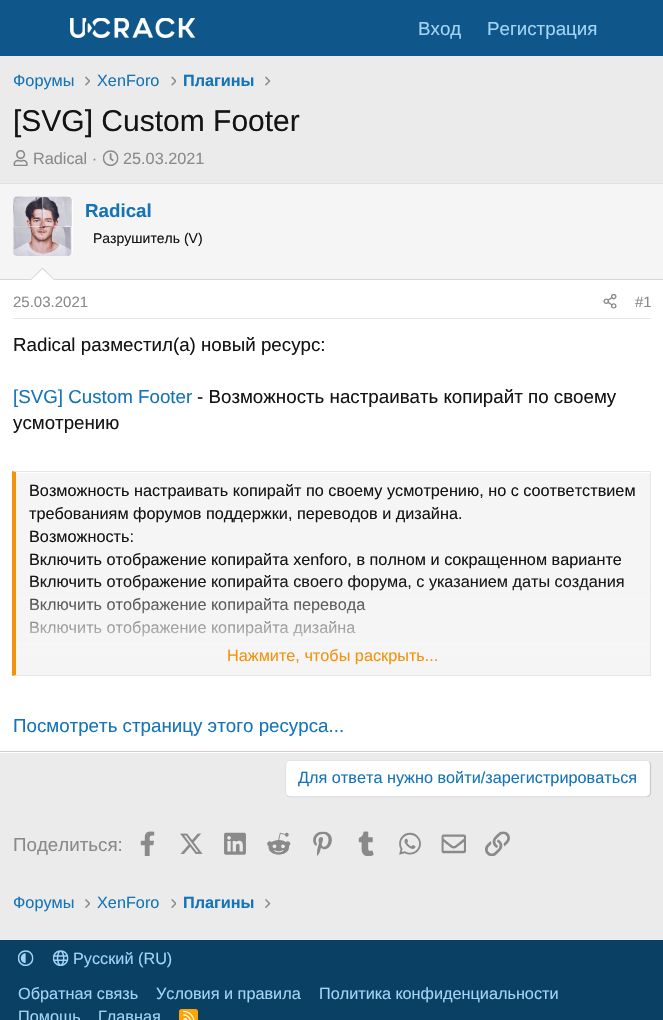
void draw(SkCanvas* c) {
SkPaint p;
p.setAntiAlias(true);
auto F=[&](const char* family, int weight, float size, bool italic = false){SkFontStyle style(weight, SkFontStyle::kNormal_Width,italic ? SkFontStyle::kItalic_Slant : SkFontStyle::kUpright_Slant);SkFont result(fontMgr->matchFamilyStyle(family, style), size);result.setSubpixel(true);return result;};
auto T=[&](const char* s, float x, float y, const SkFont& font){c->drawString(s, x, y, font, p);};
auto R=[&](float x, float y, float w, float h){c->drawRect(SkRect::MakeXYWH(x, y, w, h), p);};
auto Q=[&](float x, float y, float w, float h, float radius){c->drawRoundRect(SkRect::MakeXYWH(x, y, w, h), radius, radius, p);};
auto I=[&](const char* path, float x, float y, float w, float h){auto image = SkImages::DeferredFromEncodedData(SkData::MakeFromFileName(path));c->drawImageRect(image, SkRect::MakeXYWH(x, y, w, h), SkSamplingOptions());};
auto P=[&](const char* data, bool evenOdd = false){SkPath result = *SkParsePath::FromSVGString(data);if (evenOdd) result.setFillType(SkPathFillType::kEvenOdd);return result;};
c->clear(0xffebebeb);
p.setColor(0xff0f578a);
R(0,0,663,56);
I("1.png",70,18,125,20);
auto f1 = F("Liberation Sans",400,18.75);
p.setColor(0xffa3d4f5);
T("Вход",418,35,f1);
T("Регистрация",487,35,f1);
auto f2 = F("Liberation Sans",400,16.25);
p.setColor(0xff1474b8);
T("Форумы",13,86,f2);
I("2.png",85,76,5,10);
T("XenForo",97,86,f2);
I("3.png",171,76,5,10);
auto f3 = F("Liberation Sans",700,16.25);
T("Плагины",183,86,f3);
I("4.png",265,76,6,10);
auto f4 = F("Liberation Sans",400,30);
p.setColor(0xff141414);
T("[SVG] Сustom Footer",13,131,f4);
I("5.png",13,150,15,16);
p.setColor(0xff8a8a8a);
T("Radical ·",33,164,f2);
I("6.png",102,150,17,16);
T("25.03.2021",123,164,f2);
p.setColor(0xffffffff);
R(0,280,663,473);
p.setColor(0xffe0e0e0);
R(0,183,663,1);
p.setColor(0xffcccccc);
R(0,751,663,1);
p.setColor(0xfff5f5f5);
R(0,184,663,95);
p.setColor(0xffd6d6d6);
R(0,279,663,1);
p.setColor(0xffffffff);
Q(13,196,60,60,5);
I("7.png",13,196,59,60);
auto f5 = F("Liberation Sans",700,18.75);
p.setColor(0xff1474b8);
T("Radical",85,217,f5);
auto f6 = F("Liberation Sans",400,14);
p.setColor(0xff141414);
T("Разрушитель (V)",93,243,f6);
p.setColor(0xffd6d6d6);
c->drawPath(P("M55 280h-25l12.5-12.5z"),p);
p.setColor(0xffffffff);
c->drawPath(P("M54 280h-23l11.5-11z"),p);
p.setColor(0xffe6e6e6);
R(13,318,638,1);
auto f7 = F("Liberation Sans",400,15);
p.setColor(0xff8a8a8a);
T("25.03.2021",13,307,f7);
I("8.png",603,294,14,15);
T("#1",635,307,f7);
p.setColor(0xff141414);
T("Radical разместил(а) новый ресурс:",13,351,f1);
p.setColor(0xff1474b8);
T("[SVG] Сustom Footer",13,403,f1);
p.setColor(0xff141414);
T("- Возможность настраивать копирайт по своему",197,403,f1);
T("усмотрению",13,429,f1);
p.setColor(0xfff5f5f5);
R(16,473,634,183);
p.setColor(0xffe6e6e6);
c->drawPath(P("M12 471h639l-1 1h-634z"),p);
R(650,471,1,205);
c->drawPath(P("M651 676h-639l4-1h634z"),p);
p.setColor(0xfff2930d);
c->drawPath(P("M12 676v-205l4 1v203z"),p);
p.setColor(0xff141414);
T("Возможность настраивать копирайт по своему усмотрению, но с соответствием",29,496,f2);
T("требованиям форумов поддержки, переводов и дизайна.",29,519,f2);
T("Возможность:",29,542,f2);
T("Включить отображение копирайта xenforo, в полном и сокращенном варианте",29,565,f2);
T("Включить отображение копирайта своего форума, с указанием даты создания",29,587,f2);
T("Включить отображение копирайта перевода",29,610,f2);
T("Включить отображение копирайта дизайна",29,633,f2);
{
const SkColor colors[] = {0x00f5f5f5,0xfff5f5f5};
const float stops[] = {0,.8};
const SkPoint ends[] = {{333,581}, {333,675}};
p.setShader(SkGradientShader::MakeLinear(ends, colors, stops, 2, SkTileMode::kClamp));
p.setAlpha(255);
}
R(16,583,634,92);
p.setShader(nullptr);
p.setColor(0xfff2930d);
T("Нажмите, чтобы раскрыть...",227,661,f2);
p.setColor(0xff1474b8);
T("Посмотреть страницу этого ресурса...",13,732,f1);
p.setColor(0xffffffff);
Q(285,760,366,38,5);
p.setStroke(true);
p.setStrokeWidth(1.2);
p.setColor(0xffc9c9c9);
c->drawPath(P("M649.5 762c.5 .5 1 2 1 3v27.5c0 1-.5 2.5-1 3c-1 1-2 1.5-3.5 1.5h-356c-1 0-2.5-.5-3-1.5"),p);
p.setColor(0xffe3e3e3);
c->drawPath(P("M287 795.5c-1-.5-1.5-2-1.5-3v-27.5c0-1 .5-2.5 1.5-3c.5-1 2-1.5 3-1.5h356c1.5 0 2.5 .5 3.5 1.5"),p);
p.setStroke(false);
p.setColor(0xff1474b8);
T("Для ответа нужно войти/зарегистрироваться",298,783,f2);
p.setColor(0xff8a8a8a);
T("Поделиться:",13,851,f1);
I("9.png",140,831,15,25);
I("10.png",180,833,23,21);
I("11.png",224,832,22,23);
I("12.png",267,832,24,23);
I("13.png",313,831,19,25);
I("14.png",358,831,16,25);
I("15.png",399,832,22,23);
I("16.png",441,834,25,20);
I("17.png",485,831,25,25);
p.setColor(0xff1474b8);
T("Форумы",13,908,f2);
I("18.png",85,899,5,9);
T("XenForo",97,908,f2);
I("19.png",171,899,5,9);
T("Плагины",183,908,f3);
I("20.png",265,899,6,9);
p.setColor(0xff0b4065);
R(0,940,663,80);
I("21.png",17,950,17,16);
I("22.png",52,950,17,16);
p.setColor(0xffa3d4f5);
T("Русский (RU)",73,964,f2);
T("Обратная связь",18,999,f2);
T("Условия и правила",156,999,f2);
T("Политика конфиденциальности",319,999,f2);
T("Помощь",18,1022,f2);
T("Главная",98,1022,f2);
p.setColor(0xffffa500);
Q(179,1009,19,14,2.5);
I("23.png",183,1010,12,10);
}
